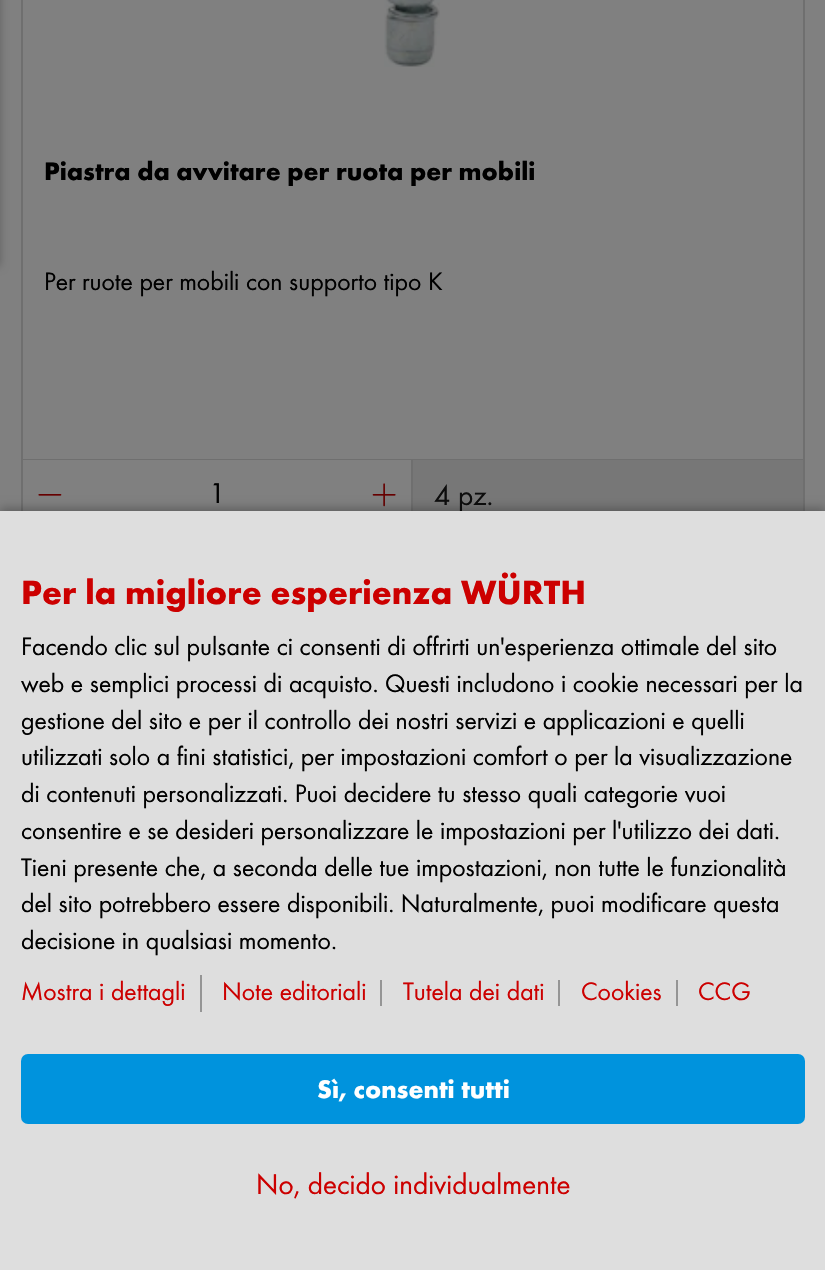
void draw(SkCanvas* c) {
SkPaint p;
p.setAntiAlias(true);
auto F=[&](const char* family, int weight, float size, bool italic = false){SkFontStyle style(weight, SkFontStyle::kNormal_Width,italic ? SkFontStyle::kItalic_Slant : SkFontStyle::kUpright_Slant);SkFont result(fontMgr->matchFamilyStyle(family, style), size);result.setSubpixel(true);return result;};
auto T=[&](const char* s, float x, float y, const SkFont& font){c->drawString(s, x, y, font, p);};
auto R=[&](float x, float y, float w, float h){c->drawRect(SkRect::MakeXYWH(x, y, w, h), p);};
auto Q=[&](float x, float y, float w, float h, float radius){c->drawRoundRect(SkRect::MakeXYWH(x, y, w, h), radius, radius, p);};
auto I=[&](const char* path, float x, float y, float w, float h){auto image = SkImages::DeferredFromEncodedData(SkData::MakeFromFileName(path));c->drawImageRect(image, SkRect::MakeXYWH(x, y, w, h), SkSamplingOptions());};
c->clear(0xff808080);
p.setColor(0x42000000);
p.setMaskFilter(SkMaskFilter::MakeBlur(kNormal_SkBlurStyle, 4.5));
c->drawRect(SkRect::MakeXYWH(-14,-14,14,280),p);
p.setMaskFilter(nullptr);
p.setStroke(true);
p.setStrokeWidth(2);
p.setColor(0xff6f6f6f);
c->drawRect(SkRect::MakeXYWH(22,-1,782,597),p);
I("1.png",384,0,56,67);
auto f1 = F("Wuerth",700,26.25);
p.setStroke(false);
p.setColor(0xff000000);
T("Piastra da avvitare per ruota per mobili",44,180,f1);
auto f2 = F("Wuerth",400,26.25);
T("Per ruote per mobili con supporto tipo K",44,290,f2);
p.setColor(0xff6f6f6f);
R(23,459,780,1);
R(411,460,2,51);
I("2.png",38,494,24,2);
auto f3 = F("Wuerth",400,29.75);
p.setColor(0xff000000);
T("1",209,503,f3);
I("3.png",372,483,24,24);
p.setColor(0xff777777);
R(413,460,390,51);
p.setColor(0xff0d0d0d);
T("4 pz.",434,505,f3);
p.setColor(0x42000000);
p.setMaskFilter(SkMaskFilter::MakeBlur(kNormal_SkBlurStyle, 4.5));
c->drawRect(SkRect::MakeXYWH(0,508,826,759),p);
p.setMaskFilter(nullptr);
p.setColor(0xffdedede);
R(0,511,825,759);
auto f4 = F("Wuerth",700,35);
p.setColor(0xffcc0000);
T("Per la migliore esperienza WÜRTH",21,604,f4);
p.setColor(0xff000000);
T("Facendo clic sul pulsante ci consenti di offrirti un'esperienza ottimale del sito",21,655,f2);
T("web e semplici processi di acquisto. Questi includono i cookie necessari per la",21,692,f2);
T("gestione del sito e per il controllo dei nostri servizi e applicazioni e quelli",21,729,f2);
T("utilizzati solo a fini statistici, per impostazioni comfort o per la visualizzazione",21,765,f2);
T("di contenuti personalizzati. Puoi decidere tu stesso quali categorie vuoi",21,802,f2);
T("consentire e se desideri personalizzare le impostazioni per l'utilizzo dei dati.",21,839,f2);
T("Tieni presente che, a seconda delle tue impostazioni, non tutte le funzionalità",21,876,f2);
T("del sito potrebbero essere disponibili. Naturalmente, puoi modificare questa",21,912,f2);
T("decisione in qualsiasi momento.",21,949,f2);
p.setColor(0xff959595);
R(200,975,2,37);
p.setColor(0xffcc0000);
T("Mostra i dettagli",21,1000,f2);
T("Note editoriali",222,1000,f2);
p.setColor(0xff959595);
R(380,980,2,26);
p.setColor(0xffcc0000);
T("Tutela dei dati",403,1000,f2);
p.setColor(0xff959595);
R(558,980,2,26);
p.setColor(0xffcc0000);
T("Cookies",581,1000,f2);
p.setColor(0xff959595);
R(676,980,2,26);
p.setColor(0xffcc0000);
T("CCG",698,1000,f2);
p.setColor(0xff0093dd);
Q(21,1054,784,70,7);
p.setColor(0xffffffff);
T("Sì, consenti tutti",317,1098,f1);
p.setColor(0xffcc0000);
T("No, decido individualmente",256,1194,f3);
}
